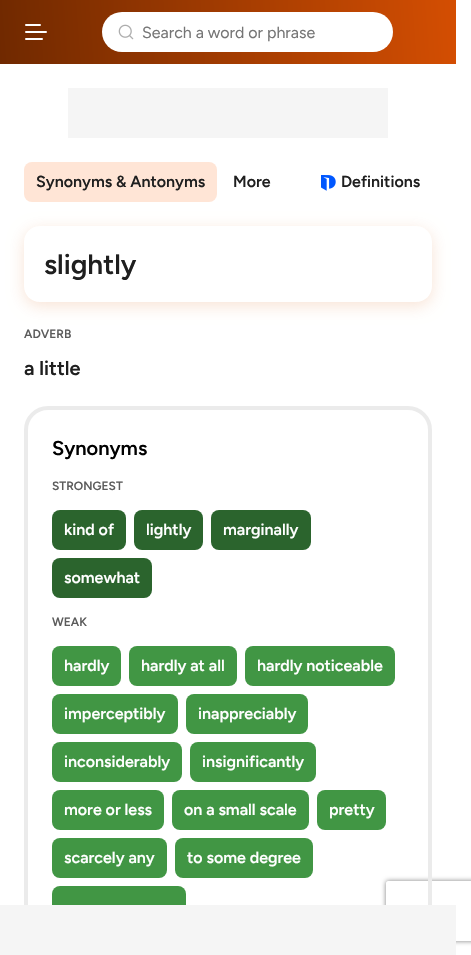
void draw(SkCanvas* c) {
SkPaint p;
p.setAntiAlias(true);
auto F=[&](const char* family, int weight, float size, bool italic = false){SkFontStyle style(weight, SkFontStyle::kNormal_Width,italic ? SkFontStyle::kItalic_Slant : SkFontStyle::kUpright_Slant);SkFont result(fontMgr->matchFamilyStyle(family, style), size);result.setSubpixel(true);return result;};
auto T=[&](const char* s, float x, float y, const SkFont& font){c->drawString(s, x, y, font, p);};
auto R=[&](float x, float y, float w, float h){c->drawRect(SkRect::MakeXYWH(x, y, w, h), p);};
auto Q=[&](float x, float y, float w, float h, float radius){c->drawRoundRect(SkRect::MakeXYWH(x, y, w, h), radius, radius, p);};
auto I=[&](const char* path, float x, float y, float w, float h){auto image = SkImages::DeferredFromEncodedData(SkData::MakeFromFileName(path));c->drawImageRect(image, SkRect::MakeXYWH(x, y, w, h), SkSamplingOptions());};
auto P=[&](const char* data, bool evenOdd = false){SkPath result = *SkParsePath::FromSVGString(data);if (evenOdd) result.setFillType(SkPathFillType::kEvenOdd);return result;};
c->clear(0xffffffff);
{
const SkColor colors[] = {0xff702900,0xffd44e02};
const float stops[] = {0,1};
const SkPoint ends[] = {{-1.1,49}, {457,15}};
p.setShader(SkGradientShader::MakeLinear(ends, colors, stops, 2, SkTileMode::kClamp));
p.setAlpha(255);
}
R(0,0,456,64);
p.setStroke(true);
p.setStrokeWidth(2);
p.setStrokeCap(SkPaint::kRound_Cap);
p.setShader(nullptr);
p.setColor(0xffffffff);
c->drawPath(P("M26 25h14m-14 7h20m-20 7h16"),p);
p.setStroke(false);
Q(102,12,291,40,20);
I("1.png",118,24,16,16);
auto f1 = F("Figtree",400,16);
p.setColor(0xff757575);
T("Search a word or phrase",142,38,f1);
p.setColor(0xfff5f5f5);
R(68,88,320,50);
p.setColor(0xffffe5d6);
Q(24,162,193,40,8);
auto f2 = F("Figtree",600,16);
p.setColor(0xff1f1f1f);
T("Synonyms & Antonyms",36,187,f2);
T("More",233,187,f2);
I("2.png",321,175,15,16);
T("Definitions",341,187,f2);
c->save();
c->clipPath(P("M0 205h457v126h-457zm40 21h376c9 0 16 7 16 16v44c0 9-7 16-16 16h-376c-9 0-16-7-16-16v-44c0-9 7-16 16-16z",true),true);
p.setColor(0x29d44e02);
p.setMaskFilter(SkMaskFilter::MakeBlur(kNormal_SkBlurStyle, 8));
c->drawRoundRect(SkRect::MakeXYWH(24,230,408,76),16,16,p);
p.setMaskFilter(nullptr);
c->restore();
auto f3 = F("Figtree",600,28);
p.setColor(0xff1f1f1f);
T("slightly",44,274,f3);
auto f4 = F("Figtree",600,12);
p.setColor(0xff5c5c5c);
T("ADVERB",24,338,f4);
auto f5 = F("Figtree",600,20);
p.setColor(0xff1f1f1f);
T("a little",24,375,f5);
c->save();
c->clipPath(P("M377 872h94v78h-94zm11 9h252c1 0 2 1 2 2v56c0 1-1 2-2 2h-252c-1 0-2-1-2-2v-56c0-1 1-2 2-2z",true),true);
p.setColor(0xff808080);
p.setMaskFilter(SkMaskFilter::MakeBlur(kNormal_SkBlurStyle, 2.5));
c->drawRoundRect(SkRect::MakeXYWH(386,881,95,60),2,2,p);
p.setMaskFilter(nullptr);
c->restore();
p.setStroke(true);
p.setStrokeWidth(4);
p.setStrokeCap(SkPaint::kButt_Cap);
p.setColor(0xffebebeb);
c->drawRoundRect(SkRect::MakeXYWH(26,408,404,544),22,22,p);
p.setStroke(false);
p.setColor(0xff000000);
T("Synonyms",52,455,f5);
p.setColor(0xff5c5c5c);
T("STRONGEST",52,490,f4);
p.setColor(0xff2b642d);
Q(52,510,74,40,8);
p.setColor(0xffffffff);
T("kind of",64,535,f2);
p.setColor(0xff2b642d);
Q(134,510,69,40,8);
p.setColor(0xffffffff);
T("lightly",146,535,f2);
p.setColor(0xff2b642d);
Q(211,510,100,40,8);
p.setColor(0xffffffff);
T("marginally",223,535,f2);
p.setColor(0xff2b642d);
Q(52,558,100,40,8);
p.setColor(0xffffffff);
T("somewhat",64,583,f2);
p.setColor(0xff5c5c5c);
T("WEAK",52,626,f4);
p.setColor(0xff419644);
Q(52,646,69,40,8);
p.setColor(0xffffffff);
T("hardly",64,671,f2);
p.setColor(0xff419644);
Q(129,646,108,40,8);
p.setColor(0xffffffff);
T("hardly at all",141,671,f2);
p.setColor(0xff419644);
Q(245,646,150,40,8);
p.setColor(0xffffffff);
T("hardly noticeable",257,671,f2);
p.setColor(0xff419644);
Q(52,694,126,40,8);
p.setColor(0xffffffff);
T("imperceptibly",64,719,f2);
p.setColor(0xff419644);
Q(186,694,122,40,8);
p.setColor(0xffffffff);
T("inappreciably",198,719,f2);
p.setColor(0xff419644);
Q(52,742,130,40,8);
p.setColor(0xffffffff);
T("inconsiderably",64,767,f2);
p.setColor(0xff419644);
Q(190,742,126,40,8);
p.setColor(0xffffffff);
T("insignificantly",202,767,f2);
p.setColor(0xff419644);
Q(52,790,112,40,8);
p.setColor(0xffffffff);
T("more or less",64,815,f2);
p.setColor(0xff419644);
Q(172,790,137,40,8);
p.setColor(0xffffffff);
T("on a small scale",184,815,f2);
p.setColor(0xff419644);
Q(317,790,69,40,8);
p.setColor(0xffffffff);
T("pretty",329,815,f2);
p.setColor(0xff419644);
Q(52,838,115,40,8);
p.setColor(0xffffffff);
T("scarcely any",64,863,f2);
p.setColor(0xff419644);
Q(175,838,138,40,8);
p.setColor(0xffffffff);
T("to some degree",187,863,f2);
p.setColor(0xff419644);
Q(52,886,134,40,8);
p.setColor(0xfff5f5f5);
R(0,905,456,50);
}
